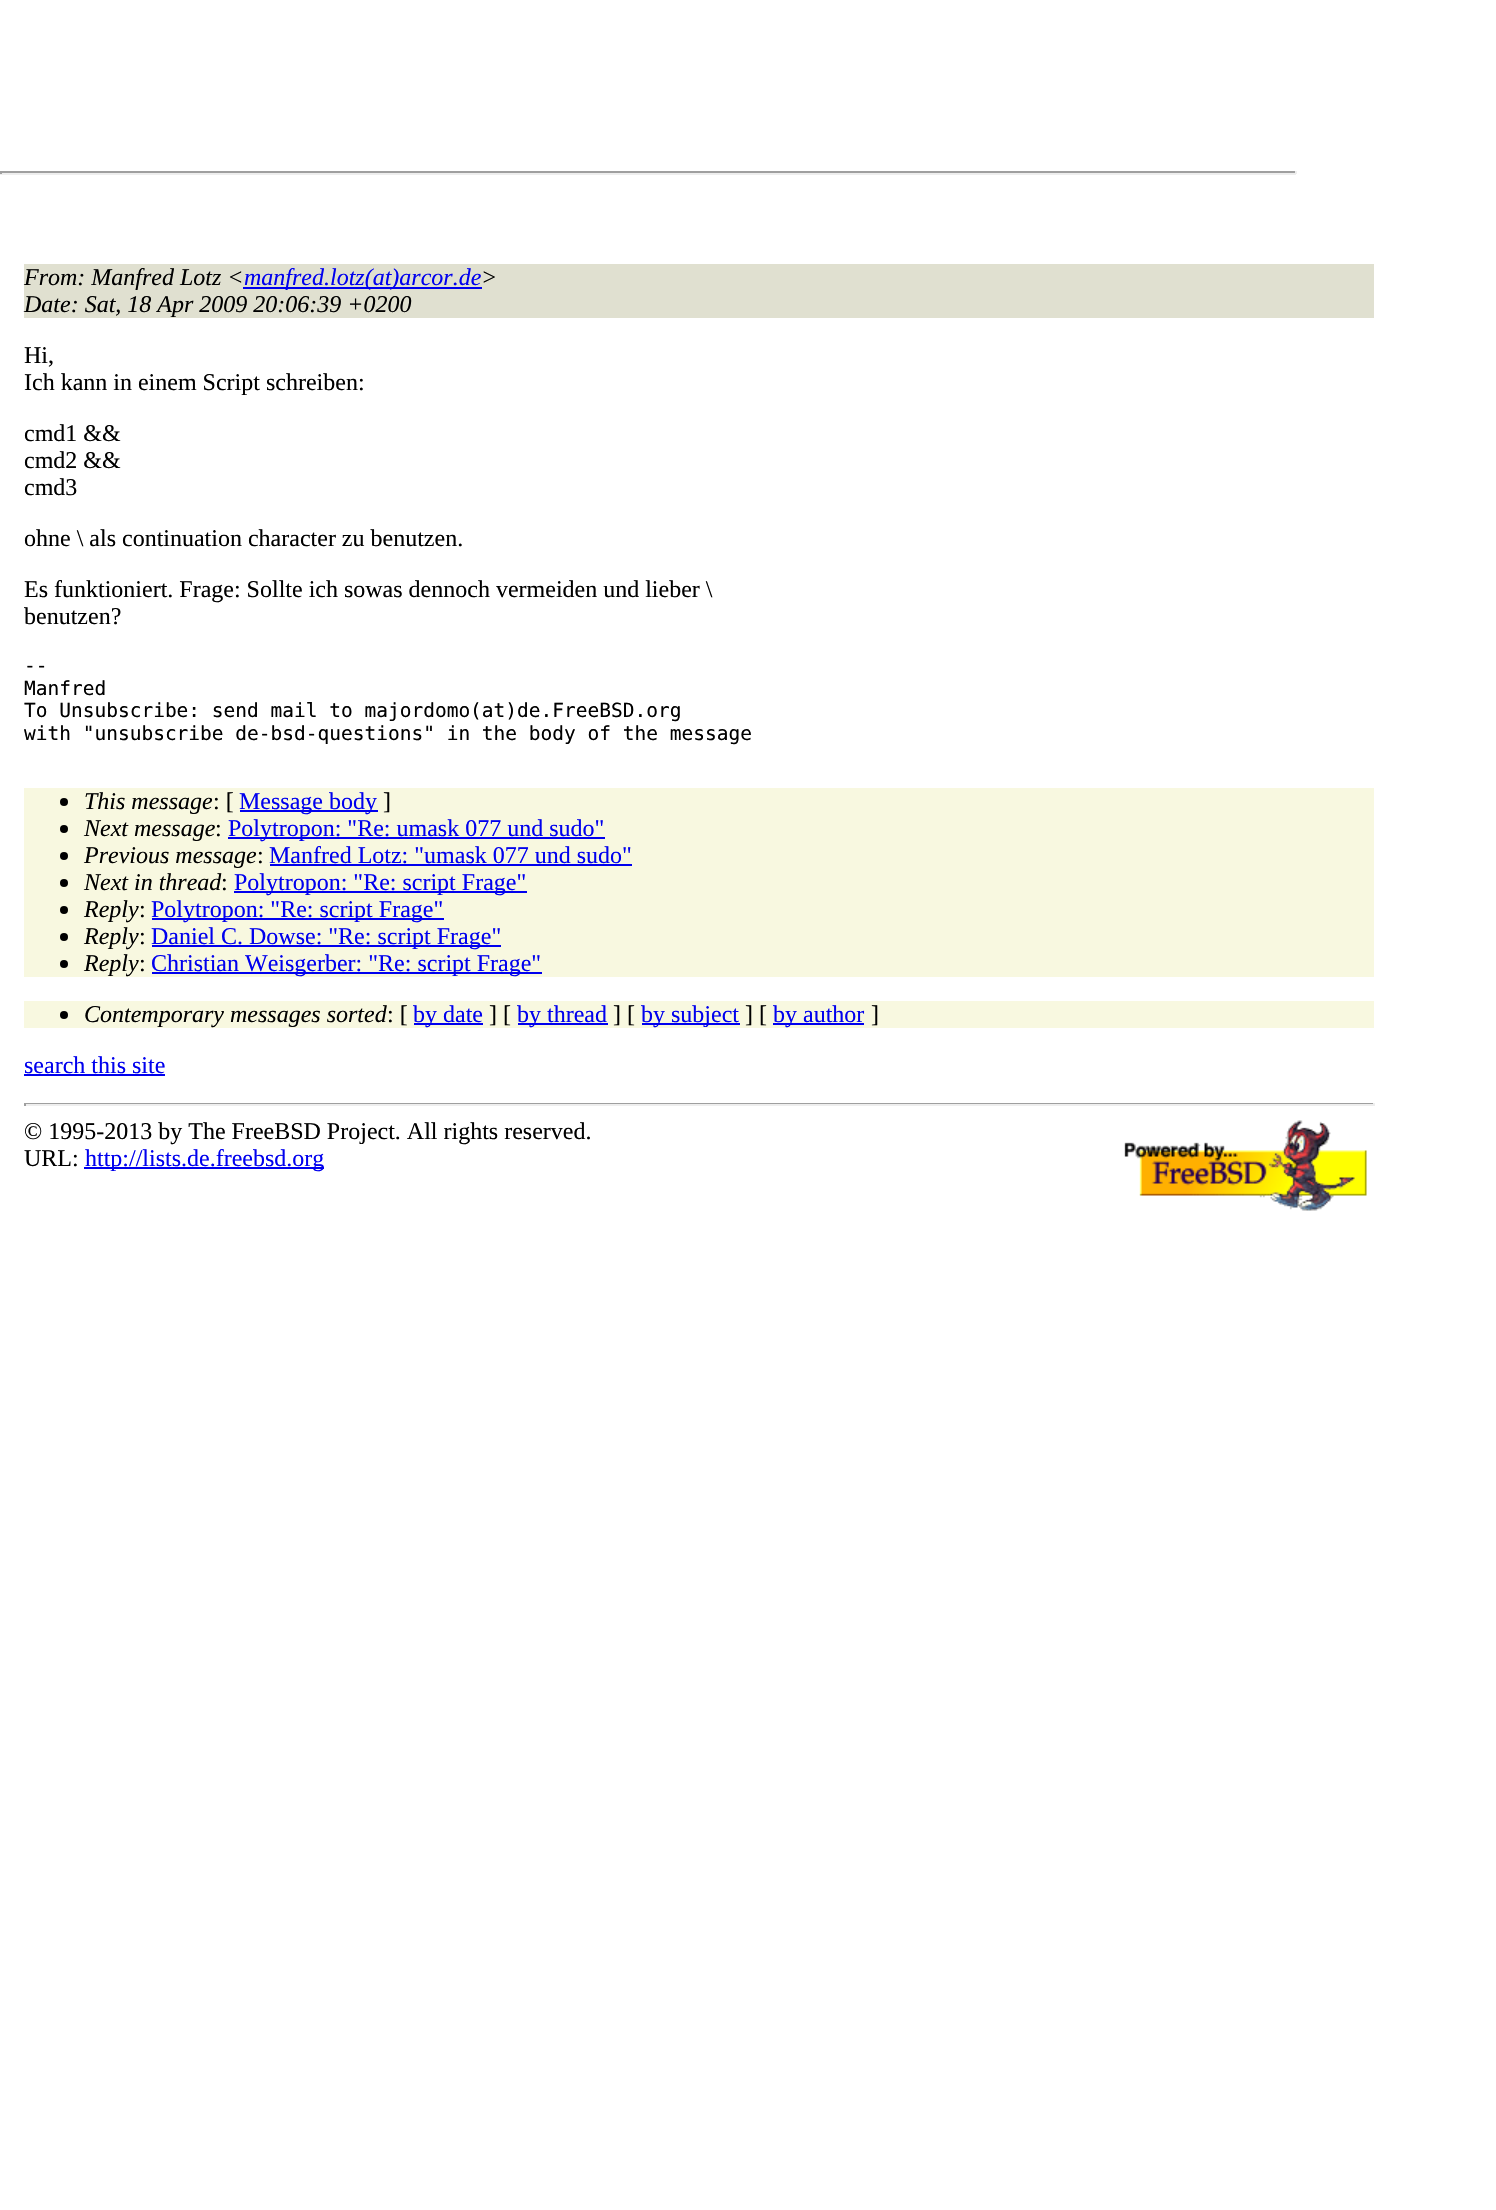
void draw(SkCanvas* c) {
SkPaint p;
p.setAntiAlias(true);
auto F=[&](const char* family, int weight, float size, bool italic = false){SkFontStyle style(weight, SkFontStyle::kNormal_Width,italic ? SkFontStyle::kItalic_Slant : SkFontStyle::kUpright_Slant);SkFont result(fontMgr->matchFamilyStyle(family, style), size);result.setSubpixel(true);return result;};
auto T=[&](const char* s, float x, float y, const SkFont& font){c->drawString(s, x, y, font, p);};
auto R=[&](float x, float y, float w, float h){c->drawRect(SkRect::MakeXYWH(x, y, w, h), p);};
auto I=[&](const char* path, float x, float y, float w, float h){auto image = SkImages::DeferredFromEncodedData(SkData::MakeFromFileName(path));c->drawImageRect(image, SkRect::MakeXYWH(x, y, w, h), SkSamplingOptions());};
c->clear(0xffffffff);
p.setColor(0xff9f9f9f);
R(0,171,1296,2);
p.setColor(0xffeeeeee);
R(1295,171,2,3);
R(0,173,1296,2);
p.setColor(0xff9f9f9f);
R(0,171,2,3);
p.setColor(0xffe0e0d0);
R(24,264,1350,54);
auto f1 = F("Liberation Serif",400,24,true);
p.setColor(0xff000000);
T("From: Manfred Lotz <",24,285,f1);
p.setColor(0xff0000ee);
R(243,287,239,2);
T("manfred.lotz(at)arcor.de",244,285,f1);
p.setColor(0xff000000);
T(">",481,285,f1);
T("Date: Sat, 18 Apr 2009 20:06:39 +0200",24,312,f1);
auto f2 = F("Liberation Serif",400,24);
T("Hi,",24,363,f2);
T("Ich kann in einem Script schreiben:",24,390,f2);
T("cmd1 &&",24,441,f2);
T("cmd2 &&",24,468,f2);
T("cmd3",24,495,f2);
T("ohne \\ als continuation character zu benutzen.",24,546,f2);
T("Es funktioniert. Frage: Sollte ich sowas dennoch vermeiden und lieber \\",24,597,f2);
T("benutzen?",24,624,f2);
auto f3 = F("DejaVu Sans Mono",400,19.5);
T("--",24,672,f3);
T("Manfred",24,695,f3);
T("To Unsubscribe: send mail to majordomo(at)de.FreeBSD.org",24,717,f3);
T("with \"unsubscribe de-bsd-questions\" in the body of the message",24,740,f3);
p.setColor(0xfff8f8e0);
R(24,788,1350,189);
p.setColor(0xff000000);
c->drawCircle(64,802,4,p);
T("This message",84,809,f1);
T(": [",213,809,f2);
p.setColor(0xff0000ee);
R(240,810,138,2);
T("Message body",239,809,f2);
p.setColor(0xff000000);
T("]",383,809,f2);
c->drawCircle(64,829,4,p);
T("Next message",84,836,f1);
T(":",215,836,f2);
p.setColor(0xff0000ee);
R(228,837,377,2);
T("Polytropon: \"Re: umask 077 und sudo\"",228,836,f2);
p.setColor(0xff000000);
c->drawCircle(64,856,4,p);
T("Previous message",84,863,f1);
T(":",257,863,f2);
p.setColor(0xff0000ee);
T("Manfred Lotz: \"umask 077 und sudo\"",269,863,f2);
R(270,864,362,2);
p.setColor(0xff000000);
c->drawCircle(64,883,4,p);
T("Next in thread",84,890,f1);
T(":",221,890,f2);
p.setColor(0xff0000ee);
R(234,891,293,2);
T("Polytropon: \"Re: script Frage\"",234,890,f2);
p.setColor(0xff000000);
c->drawCircle(64,910,4,p);
T("Reply",84,917,f1);
T(":",139,917,f2);
p.setColor(0xff0000ee);
R(152,918,292,2);
T("Polytropon: \"Re: script Frage\"",151,917,f2);
p.setColor(0xff000000);
c->drawCircle(64,937,4,p);
T("Reply",84,944,f1);
T(":",139,944,f2);
p.setColor(0xff0000ee);
R(152,945,349,2);
T("Daniel C. Dowse: \"Re: script Frage\"",151,944,f2);
p.setColor(0xff000000);
c->drawCircle(64,964,4,p);
T("Reply",84,971,f1);
T(":",139,971,f2);
p.setColor(0xff0000ee);
R(152,972,390,2);
T("Christian Weisgerber: \"Re: script Frage\"",151,971,f2);
p.setColor(0xfff8f8e0);
R(24,1001,1350,27);
p.setColor(0xff000000);
c->drawCircle(64,1015,4,p);
T("Contemporary messages sorted",84,1022,f1);
T(": [",387,1022,f2);
p.setColor(0xff0000ee);
R(414,1023,69,2);
T("by date",413,1022,f2);
p.setColor(0xff000000);
T("] [",489,1022,f2);
p.setColor(0xff0000ee);
R(518,1023,90,2);
T("by thread",517,1022,f2);
p.setColor(0xff000000);
T("] [",613,1022,f2);
p.setColor(0xff0000ee);
R(642,1023,98,2);
T("by subject",641,1022,f2);
p.setColor(0xff000000);
T("] [",745,1022,f2);
p.setColor(0xff0000ee);
R(773,1023,91,2);
T("by author",773,1022,f2);
p.setColor(0xff000000);
T("]",871,1022,f2);
p.setColor(0xff0000ee);
T("search this site",24,1073,f2);
R(24,1074,141,2);
p.setColor(0xff9f9f9f);
R(24,1103,1350,1);
p.setColor(0xffeeeeee);
R(1373,1103,2,3);
R(24,1104,1350,2);
p.setColor(0xff9f9f9f);
R(24,1103,2,3);
p.setColor(0xff000000);
T("© 1995-2013 by The FreeBSD Project. All rights reserved.",24,1139,f2);
I("1.png",1124,1120,243,91);
T("URL:",24,1166,f2);
p.setColor(0xff0000ee);
R(84,1167,240,2);
T("http://lists.de.freebsd.org",85,1166,f2);
}
